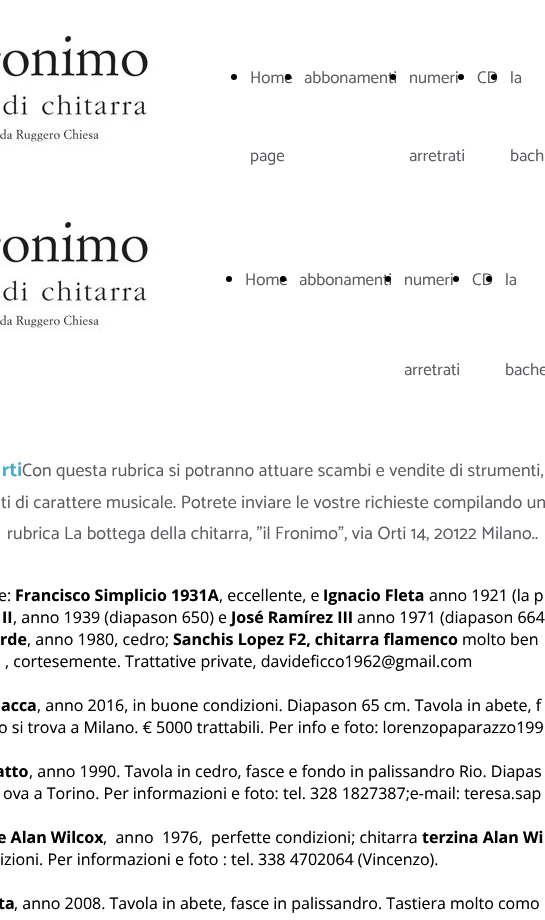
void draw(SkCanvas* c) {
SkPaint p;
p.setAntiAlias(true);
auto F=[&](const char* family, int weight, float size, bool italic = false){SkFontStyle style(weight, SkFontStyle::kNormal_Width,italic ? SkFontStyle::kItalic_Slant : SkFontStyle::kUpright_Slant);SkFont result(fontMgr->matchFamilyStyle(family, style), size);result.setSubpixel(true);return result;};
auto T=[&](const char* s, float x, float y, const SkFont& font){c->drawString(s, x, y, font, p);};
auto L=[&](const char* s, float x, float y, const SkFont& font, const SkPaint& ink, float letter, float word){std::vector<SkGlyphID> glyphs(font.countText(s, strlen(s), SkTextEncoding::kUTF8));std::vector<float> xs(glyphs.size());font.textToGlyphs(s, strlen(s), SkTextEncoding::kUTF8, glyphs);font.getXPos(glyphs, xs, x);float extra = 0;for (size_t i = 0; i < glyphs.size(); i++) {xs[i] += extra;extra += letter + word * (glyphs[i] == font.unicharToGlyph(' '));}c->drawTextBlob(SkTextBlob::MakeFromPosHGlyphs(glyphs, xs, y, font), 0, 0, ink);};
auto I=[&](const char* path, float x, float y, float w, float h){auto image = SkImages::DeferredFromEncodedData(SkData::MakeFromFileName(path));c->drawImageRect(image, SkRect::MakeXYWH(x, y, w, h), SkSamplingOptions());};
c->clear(0xffffffff);
I("1.png",0,33,153,112);
p.setColor(0xff000000);
c->drawCircle(234,77,3,p);
auto f1 = F("Catamaran",400,17);
p.setColor(0xff5d5c62);
T("Home",250,83,f1);
T("page",250,161,f1);
p.setColor(0xff000000);
c->drawCircle(288,77,3,p);
p.setColor(0xff5d5c62);
T("abbonamenti",304,83,f1);
p.setColor(0xff000000);
c->drawCircle(393,77,3,p);
p.setColor(0xff5d5c62);
T("numeri",409,83,f1);
T("arretrati",409,161,f1);
p.setColor(0xff000000);
c->drawCircle(461,77,3,p);
p.setColor(0xff5d5c62);
T("CD",477,83,f1);
p.setColor(0xff000000);
c->drawCircle(494,77,3,p);
p.setColor(0xff5d5c62);
T("la",510,83,f1);
T("bach",510,161,f1);
I("1.png",0,219,153,112);
p.setColor(0xff000000);
c->drawCircle(229,279,3,p);
p.setColor(0xff5d5c62);
T("Home",245,285,f1);
p.setColor(0xff000000);
c->drawCircle(283,279,3,p);
p.setColor(0xff5d5c62);
T("abbonamenti",299,285,f1);
p.setColor(0xff000000);
c->drawCircle(388,279,3,p);
p.setColor(0xff5d5c62);
T("numeri",404,285,f1);
T("arretrati",404,375,f1);
p.setColor(0xff000000);
c->drawCircle(456,279,3,p);
p.setColor(0xff5d5c62);
T("CD",472,285,f1);
p.setColor(0xff000000);
c->drawCircle(489,279,3,p);
p.setColor(0xff5d5c62);
T("la",505,285,f1);
T("bache",505,375,f1);
auto f2 = F("Catamaran",700,20);
p.setColor(0xff4bacc6);
L("rti",2,476,f2,p,.18,0);
auto f3 = F("Catamaran",400,18);
p.setColor(0xff5d5c62);
L("Con questa rubrica si potranno attuare scambi e vendite di strumenti,",22,476,f3,p,.18,0);
L("ti di carattere musicale. Potrete inviare le vostre richieste compilando un",1,508,f3,p,.18,0);
L("rubrica La bottega della chitarra, \"il Fronimo\", via Orti 14, 20122 Milano..",7,539,f3,p,.18,0);
auto f4 = F("Open Sans",400,16);
p.setColor(0xff000000);
T("e:",-2,601,f4);
auto f5 = F("Open Sans",700,16);
T("Francisco Simplicio 1931A",15,601,f5);
T(", eccellente, e",219,601,f4);
T("Ignacio Fleta",323,601,f5);
T("anno 1921 (la p",429,601,f4);
T("II",2,623,f5);
T(", anno 1939 (diapason 650) e",13,623,f4);
T("José Ramírez III",231,623,f5);
T("anno 1971 (diapason 664",357,623,f4);
T("rde",0,645,f5);
T(", anno 1980, cedro;",27,645,f4);
T("Sanchis Lopez F2, chitarra flamenco",173,645,f5);
T("molto ben",462,645,f4);
T(", cortesemente. Trattative private, davideficco1962@gmail.com",5,667,f4);
T("acca",1,711,f5);
T(", anno 2016, in buone condizioni. Diapason 65 cm. Tavola in abete, f",37,711,f4);
T("o si trova a Milano. € 5000 trattabili. Per info e foto: lorenzopaparazzo199",-2,733,f4);
T("atto",-5,777,f5);
T(", anno 1990. Tavola in cedro, fasce e fondo in palissandro Rio. Diapas",29,777,f4);
T("ova a Torino. Per informazioni e foto: tel. 328 1827387; e-mail: teresa.sap",3,799,f4);
T("e Alan Wilcox",-3,843,f5);
T(",  anno  1976,  perfette condizioni; chitarra",103,843,f4);
T("terzina Alan Wi",422,843,f5);
T("izioni. Per informazioni e foto : tel. 338 4702064 (Vincenzo).",0,865,f4);
T("ta",-2,909,f5);
T(", anno 2008. Tavola in abete, fasce in palissandro. Tastiera molto como",14,909,f4);
}
